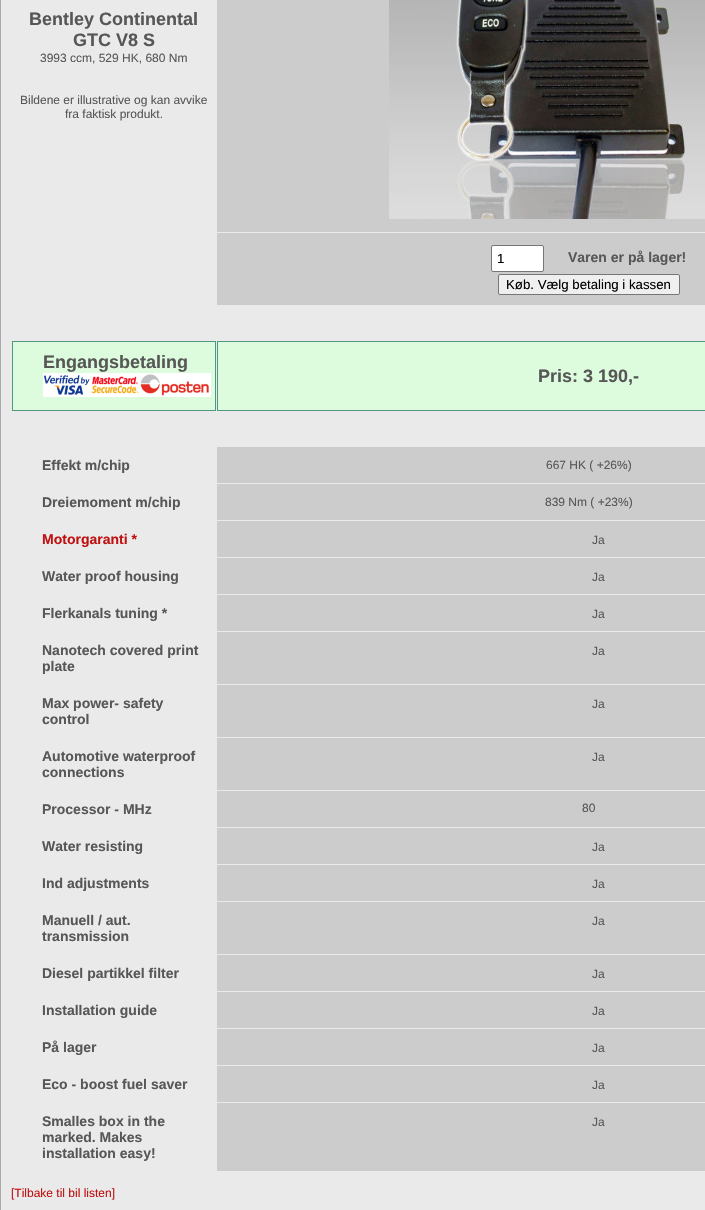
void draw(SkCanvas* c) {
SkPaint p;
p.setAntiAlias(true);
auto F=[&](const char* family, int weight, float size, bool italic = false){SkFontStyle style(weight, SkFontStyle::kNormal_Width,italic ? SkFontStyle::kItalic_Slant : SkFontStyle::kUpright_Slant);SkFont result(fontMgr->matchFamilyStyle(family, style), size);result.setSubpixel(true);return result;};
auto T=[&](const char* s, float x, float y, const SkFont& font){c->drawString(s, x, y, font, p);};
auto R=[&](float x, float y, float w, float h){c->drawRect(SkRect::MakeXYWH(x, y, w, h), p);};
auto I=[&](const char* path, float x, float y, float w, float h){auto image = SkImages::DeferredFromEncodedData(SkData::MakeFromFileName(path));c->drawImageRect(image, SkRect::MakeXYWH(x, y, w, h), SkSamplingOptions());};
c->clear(0xffeaeaea);
p.setColor(0xffaaaaaa);
R(0,0,1,1210);
auto f1 = F("Liberation Sans",700,18);
p.setColor(0xff575757);
T("Bentley Continental",29,25,f1);
T("GTC V8 S",73,46,f1);
auto f2 = F("Liberation Sans",400,12);
T("3993 ccm, 529 HK, 680 Nm",40,62,f2);
T("Bildene er illustrative og kan avvike",20,104,f2);
T("fra faktisk produkt.",65,118,f2);
p.setColor(0xffcccccc);
R(217,0,488,232);
I("1.png",389,0,316,219);
R(217,233,488,72);
p.setColor(0xffffffff);
c->drawRoundRect(SkRect::MakeXYWH(491.5,245.5,52,26),1.5,1.5,p);
p.setStroke(true);
p.setStrokeWidth(1);
p.setColor(0xff767676);
c->drawRoundRect(SkRect::MakeXYWH(491.5,245.5,52,26),1.5,1.5,p);
auto f3 = F("Liberation Sans",400,13.25);
p.setStroke(false);
p.setColor(0xff000000);
T("1",497,263,f3);
auto f4 = F("Liberation Sans",700,14);
p.setColor(0xff575757);
T("Varen er på lager!",568,262,f4);
p.setColor(0xffefefef);
c->drawRoundRect(SkRect::MakeXYWH(498.5,274.5,181,20),1.5,1.5,p);
p.setStroke(true);
p.setColor(0xff767676);
c->drawRoundRect(SkRect::MakeXYWH(498.5,274.5,181,20),1.5,1.5,p);
p.setStroke(false);
p.setColor(0xff000000);
T("Køb. Vælg betaling i kassen",506,289,f3);
p.setColor(0xffddfcdd);
c->drawRect(SkRect::MakeXYWH(12.5,341.5,203,69),p);
p.setStroke(true);
p.setColor(0xff509681);
c->drawRect(SkRect::MakeXYWH(12.5,341.5,203,69),p);
p.setStroke(false);
p.setColor(0xff575757);
T("Engangsbetaling",43,368,f1);
I("2.png",43,373,48,24);
I("3.png",91,373,48,24);
I("4.png",139,373,72,24);
p.setColor(0xffddfcdd);
c->drawRect(SkRect::MakeXYWH(217.5,341.5,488,69),p);
p.setStroke(true);
p.setColor(0xff509681);
c->drawRect(SkRect::MakeXYWH(217.5,341.5,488,69),p);
p.setStroke(false);
p.setColor(0xff575757);
T("Pris: 3 190,-",538,382,f1);
T("Effekt m/chip",42,470,f4);
p.setColor(0xffcccccc);
R(217,447,488,36);
p.setColor(0xff575757);
T("667 HK ( +26%)",546,469,f2);
T("Dreiemoment m/chip",42,507,f4);
p.setColor(0xffcccccc);
R(217,484,488,36);
p.setColor(0xff575757);
T("839 Nm ( +23%)",545,506,f2);
p.setColor(0xffc01111);
T("Motorgaranti *",42,544,f4);
p.setColor(0xffcccccc);
R(217,521,488,36);
p.setColor(0xff575757);
T("Ja",592,544,f2);
T("Water proof housing",42,581,f4);
p.setColor(0xffcccccc);
R(217,558,488,36);
p.setColor(0xff575757);
T("Ja",592,581,f2);
T("Flerkanals tuning *",42,618,f4);
p.setColor(0xffcccccc);
R(217,595,488,36);
p.setColor(0xff575757);
T("Ja",592,618,f2);
T("Nanotech covered print",42,655,f4);
T("plate",42,671,f4);
p.setColor(0xffcccccc);
R(217,632,488,52);
p.setColor(0xff575757);
T("Ja",592,655,f2);
T("Max power- safety",42,708,f4);
T("control",42,724,f4);
p.setColor(0xffcccccc);
R(217,685,488,52);
p.setColor(0xff575757);
T("Ja",592,708,f2);
T("Automotive waterproof",42,761,f4);
T("connections",42,777,f4);
p.setColor(0xffcccccc);
R(217,738,488,52);
p.setColor(0xff575757);
T("Ja",592,761,f2);
T("Processor - MHz",42,814,f4);
p.setColor(0xffcccccc);
R(217,791,488,36);
p.setColor(0xff575757);
T("80",582,812,f2);
T("Water resisting",42,851,f4);
p.setColor(0xffcccccc);
R(217,828,488,36);
p.setColor(0xff575757);
T("Ja",592,851,f2);
T("Ind adjustments",42,888,f4);
p.setColor(0xffcccccc);
R(217,865,488,36);
p.setColor(0xff575757);
T("Ja",592,888,f2);
T("Manuell / aut.",42,925,f4);
T("transmission",42,941,f4);
p.setColor(0xffcccccc);
R(217,902,488,52);
p.setColor(0xff575757);
T("Ja",592,925,f2);
T("Diesel partikkel filter",42,978,f4);
p.setColor(0xffcccccc);
R(217,955,488,36);
p.setColor(0xff575757);
T("Ja",592,978,f2);
T("Installation guide",42,1015,f4);
p.setColor(0xffcccccc);
R(217,992,488,36);
p.setColor(0xff575757);
T("Ja",592,1015,f2);
T("På lager",42,1052,f4);
p.setColor(0xffcccccc);
R(217,1029,488,36);
p.setColor(0xff575757);
T("Ja",592,1052,f2);
T("Eco - boost fuel saver",42,1089,f4);
p.setColor(0xffcccccc);
R(217,1066,488,36);
p.setColor(0xff575757);
T("Ja",592,1089,f2);
T("Smalles box in the",42,1126,f4);
T("marked. Makes",42,1142,f4);
T("installation easy!",42,1158,f4);
p.setColor(0xffcccccc);
R(217,1103,488,68);
p.setColor(0xff575757);
T("Ja",592,1126,f2);
p.setColor(0xffc01111);
T("[Tilbake til bil listen]",11,1197,f2);
}
